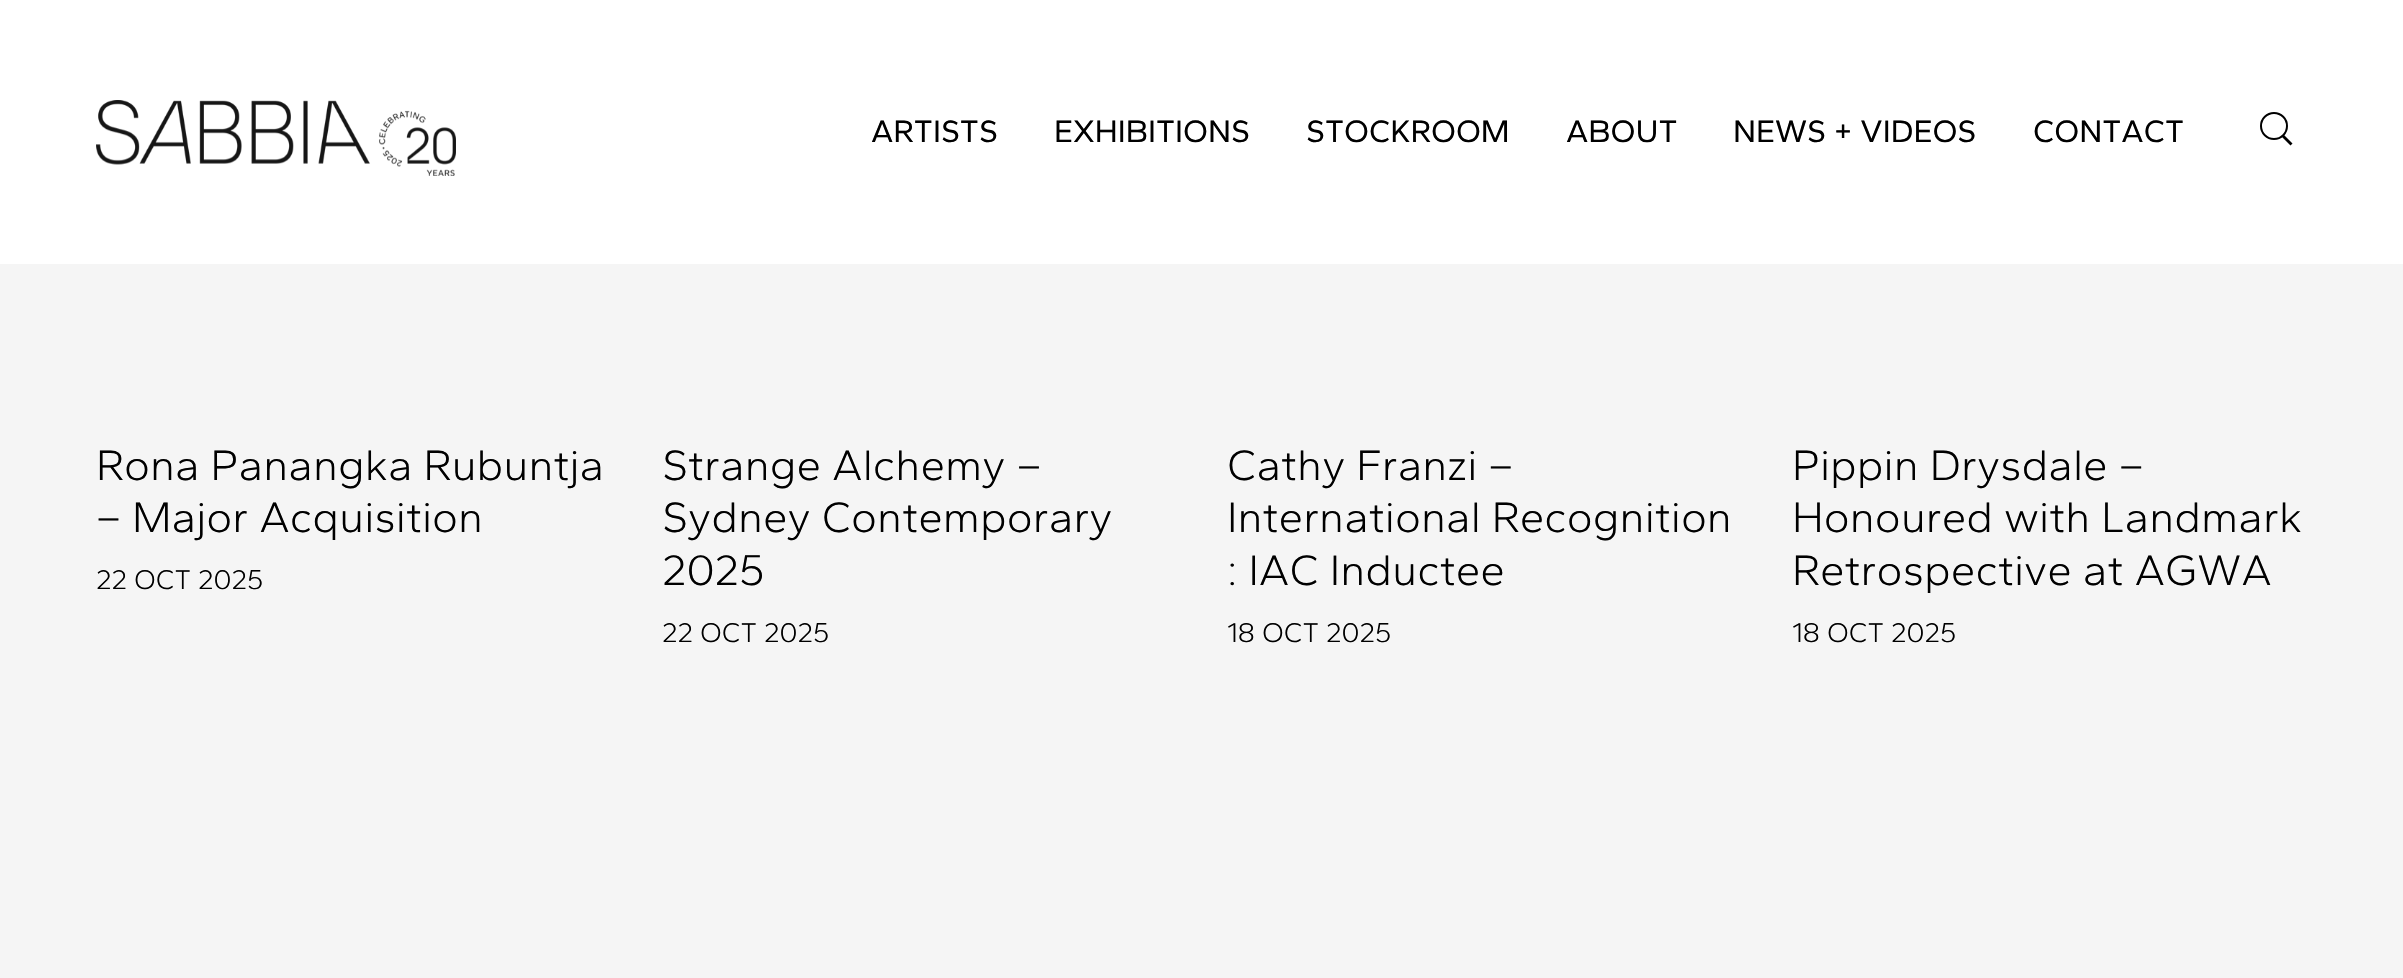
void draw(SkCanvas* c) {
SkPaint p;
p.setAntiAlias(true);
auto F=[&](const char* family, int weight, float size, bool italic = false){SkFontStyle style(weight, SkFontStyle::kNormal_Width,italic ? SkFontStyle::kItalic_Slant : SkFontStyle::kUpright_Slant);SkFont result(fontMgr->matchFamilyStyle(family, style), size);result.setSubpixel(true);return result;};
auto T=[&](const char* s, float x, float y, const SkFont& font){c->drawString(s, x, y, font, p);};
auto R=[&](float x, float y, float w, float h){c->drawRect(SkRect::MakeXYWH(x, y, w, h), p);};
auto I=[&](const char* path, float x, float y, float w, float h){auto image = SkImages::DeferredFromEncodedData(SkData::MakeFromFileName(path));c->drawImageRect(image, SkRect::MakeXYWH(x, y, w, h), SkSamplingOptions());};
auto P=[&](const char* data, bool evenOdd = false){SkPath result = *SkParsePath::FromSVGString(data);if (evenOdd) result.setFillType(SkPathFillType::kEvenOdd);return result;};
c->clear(0xfff5f5f5);
p.setColor(0xffffffff);
R(0,0,2403,264);
I("1.png",96,100,360,76);
auto f1 = F("Gantari",400,32);
p.setColor(0xff000000);
T("ARTISTS",871,142,f1);
T("EXHIBITIONS",1054,142,f1);
T("STOCKROOM",1306,142,f1);
T("ABOUT",1566,142,f1);
T("NEWS + VIDEOS",1733,142,f1);
T("CONTACT",2033,142,f1);
p.setStroke(true);
p.setStrokeWidth(2);
c->drawCircle(2274,126,13,p);
p.setStroke(false);
c->drawPath(P("M2284 135l8.5 8.5l-2 2l-8.5-8.5z"),p);
auto f2 = F("Gantari",300,44);
T("Rona Panangka Rubuntja",96,480,f2);
T("– Major Acquisition",96,532,f2);
auto f3 = F("Gantari",300,28);
T("22 OCT 2025",96,589,f3);
T("Strange Alchemy –",662,480,f2);
T("Sydney Contemporary",662,532,f2);
T("2025",662,585,f2);
T("22 OCT 2025",662,642,f3);
T("Cathy Franzi –",1227,480,f2);
T("International Recognition",1227,532,f2);
T(": IAC Inductee",1227,585,f2);
T("18 OCT 2025",1227,642,f3);
T("Pippin Drysdale –",1792,480,f2);
T("Honoured with Landmark",1792,532,f2);
T("Retrospective at AGWA",1792,585,f2);
T("18 OCT 2025",1792,642,f3);
}
